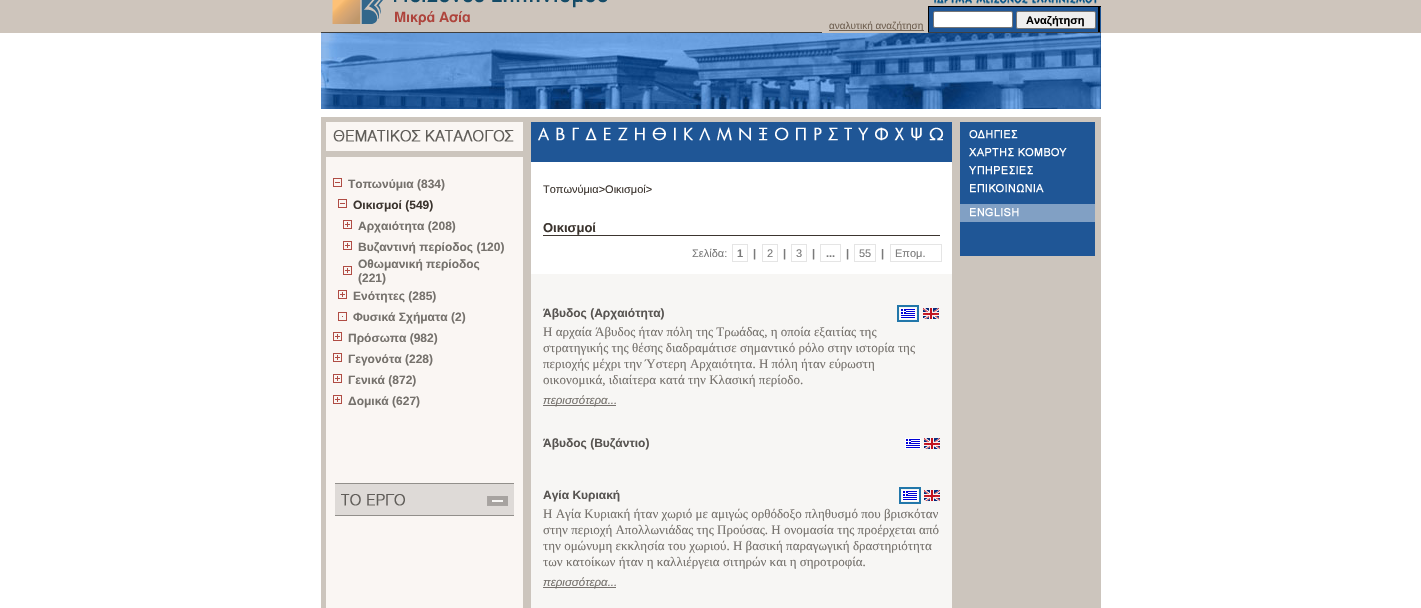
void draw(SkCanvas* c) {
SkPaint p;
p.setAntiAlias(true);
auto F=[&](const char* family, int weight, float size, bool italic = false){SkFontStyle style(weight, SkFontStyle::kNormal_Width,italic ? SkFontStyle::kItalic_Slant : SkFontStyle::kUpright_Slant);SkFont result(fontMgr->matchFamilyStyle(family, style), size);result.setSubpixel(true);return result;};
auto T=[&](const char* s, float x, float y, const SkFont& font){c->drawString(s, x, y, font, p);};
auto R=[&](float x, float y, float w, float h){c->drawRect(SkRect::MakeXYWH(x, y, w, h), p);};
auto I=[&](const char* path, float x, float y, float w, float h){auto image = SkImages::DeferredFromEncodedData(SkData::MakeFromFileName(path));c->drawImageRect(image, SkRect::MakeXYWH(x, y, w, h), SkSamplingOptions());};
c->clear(0xffffffff);
p.setColor(0xffcec5bc);
R(0,0,321,33);
R(609,0,812,33);
I("1.png",321,0,288,33);
I("2.png",933,0,164,4);
p.setColor(0xff706152);
R(829,30,95,1);
auto f1 = F("Liberation Sans",400,10);
T("αναλυτική αναζήτηση",829,29,f1);
p.setColor(0xff404040);
R(609,32,213,1);
I("3.png",928,6,173,27);
p.setColor(0xffffffff);
c->drawRoundRect(SkRect::MakeXYWH(933.5,11.5,79,16),1.5,1.5,p);
p.setStroke(true);
p.setStrokeWidth(1);
p.setColor(0xff767676);
c->drawRoundRect(SkRect::MakeXYWH(933.5,11.5,79,16),1.5,1.5,p);
p.setStroke(false);
p.setColor(0xffefefef);
c->drawRoundRect(SkRect::MakeXYWH(1016.5,11.5,79,17),1.5,1.5,p);
p.setStroke(true);
p.setColor(0xff767676);
c->drawRoundRect(SkRect::MakeXYWH(1016.5,11.5,79,17),1.5,1.5,p);
auto f2 = F("Liberation Sans",700,11);
p.setStroke(false);
p.setColor(0xff000000);
T("Αναζήτηση",1026,24,f2);
I("4.png",321,33,780,76);
p.setColor(0xffccc5bd);
R(321,117,780,491);
p.setColor(0xfffaf6f3);
R(326,122,197,486);
I("5.png",333,130,181,12);
p.setColor(0xffccc5bd);
R(326,151,197,6);
I("6.png",333,178,9,9);
auto f3 = F("Liberation Sans",700,12);
p.setColor(0xff75716c);
T("Τοπωνύμια (834)",348,188,f3);
I("6.png",338,199,9,9);
p.setColor(0xff3c352f);
T("Οικισμοί (549)",353,209,f3);
I("7.png",343,220,9,9);
p.setColor(0xff75716c);
T("Αρχαιότητα (208)",358,230,f3);
I("7.png",343,241,9,9);
T("Βυζαντινή περίοδος (120)",358,251,f3);
I("7.png",343,266,9,9);
T("Οθωμανική περίοδος",358,268,f3);
T("(221)",358,282,f3);
I("7.png",338,290,9,9);
T("Ενότητες (285)",353,300,f3);
I("8.png",338,312,9,9);
T("Φυσικά Σχήματα (2)",353,321,f3);
I("7.png",333,332,9,9);
T("Πρόσωπα (982)",348,342,f3);
I("7.png",333,353,9,9);
T("Γεγονότα (228)",348,363,f3);
I("7.png",333,374,9,9);
T("Γενικά (872)",348,384,f3);
I("7.png",333,395,9,9);
T("Δομικά (627)",348,405,f3);
I("9.png",335,483,179,33);
p.setColor(0xfff7f6f4);
R(531,274,421,334);
I("10.png",531,122,421,40);
p.setColor(0xffffffff);
R(531,162,421,112);
auto f4 = F("Liberation Sans",400,11);
p.setColor(0xff3c352f);
T("Τοπωνύμια>Οικισμοί>",543,193,f4);
R(543,235,397,1);
auto f5 = F("Liberation Sans",700,13);
T("Οικισμοί",543,232,f5);
p.setColor(0xff7a7a7a);
T("Σελίδα:",692,257,f4);
p.setStroke(true);
p.setColor(0xffe5e5e5);
c->drawRect(SkRect::MakeXYWH(732.5,244.5,15,17),p);
p.setStroke(false);
p.setColor(0xff7a7a7a);
T("1",737,257,f2);
T("|",753,257,f2);
p.setStroke(true);
p.setColor(0xffe5e5e5);
c->drawRect(SkRect::MakeXYWH(762.5,244.5,15,17),p);
p.setStroke(false);
p.setColor(0xff7a7a7a);
T("2",767,257,f4);
T("|",783,257,f2);
p.setStroke(true);
p.setColor(0xffe5e5e5);
c->drawRect(SkRect::MakeXYWH(791.5,244.5,15,17),p);
p.setStroke(false);
p.setColor(0xff7a7a7a);
T("3",796,257,f4);
T("|",812,257,f2);
p.setStroke(true);
p.setColor(0xffe5e5e5);
c->drawRect(SkRect::MakeXYWH(820.5,244.5,20,17),p);
p.setStroke(false);
p.setColor(0xff7a7a7a);
T("...",826,257,f2);
T("|",846,257,f2);
p.setStroke(true);
p.setColor(0xffe5e5e5);
c->drawRect(SkRect::MakeXYWH(854.5,244.5,21,17),p);
p.setStroke(false);
p.setColor(0xff7a7a7a);
T("55",859,257,f4);
T("|",881,257,f2);
p.setStroke(true);
p.setColor(0xffe5e5e5);
c->drawRect(SkRect::MakeXYWH(890.5,244.5,51,17),p);
p.setStroke(false);
p.setColor(0xff7a7a7a);
T("Επομ.",895,257,f4);
p.setColor(0xff585552);
T("Άβυδος (Αρχαιότητα)",543,317,f3);
p.setStroke(true);
p.setStrokeWidth(2);
p.setColor(0xff2277aa);
c->drawRect(SkRect::MakeXYWH(898,306,20,15),p);
I("11.png",900,308,16,11);
I("12.png",923,308,16,11);
auto f6 = F("Liberation Serif",400,13);
p.setStroke(false);
p.setColor(0xff75716c);
T("Η αρχαία Άβυδος ήταν πόλη της Τρωάδας, η οποία εξαιτίας της",543,336,f6);
T("στρατηγικής της θέσης διαδραμάτισε σημαντικό ρόλο στην ιστορία της",543,352,f6);
T("περιοχής μέχρι την Ύστερη Αρχαιότητα. Η πόλη ήταν εύρωστη",543,368,f6);
T("οικονομικά, ιδιαίτερα κατά την Κλασική περίοδο.",543,384,f6);
p.setColor(0xff77726e);
R(543,405,73,1);
auto f7 = F("Liberation Sans",400,11.5,true);
p.setColor(0xff75716c);
T("περισσότερα...",543,404,f7);
p.setColor(0xff585552);
T("Άβυδος (Βυζάντιο)",543,447,f3);
I("11.png",905,438,16,11);
I("12.png",924,438,16,11);
T("Αγία Κυριακή",543,499,f3);
p.setStroke(true);
p.setColor(0xff2277aa);
c->drawRect(SkRect::MakeXYWH(900,488,20,15),p);
I("11.png",902,490,16,11);
I("12.png",924,490,16,11);
p.setStroke(false);
p.setColor(0xff75716c);
T("Η Αγία Κυριακή ήταν χωριό με αμιγώς ορθόδοξο πληθυσμό που βρισκόταν",543,518,f6);
T("στην περιοχή Απολλωνιάδας της Προύσας. Η ονομασία της προέρχεται από",543,534,f6);
T("την ομώνυμη εκκλησία του χωριού. Η βασική παραγωγική δραστηριότητα",543,550,f6);
T("των κατοίκων ήταν η καλλιέργεια σιτηρών και η σηροτροφία.",543,566,f6);
p.setColor(0xff77726e);
R(543,587,73,1);
p.setColor(0xff75716c);
T("περισσότερα...",543,586,f7);
I("13.png",960,122,135,134);
}
